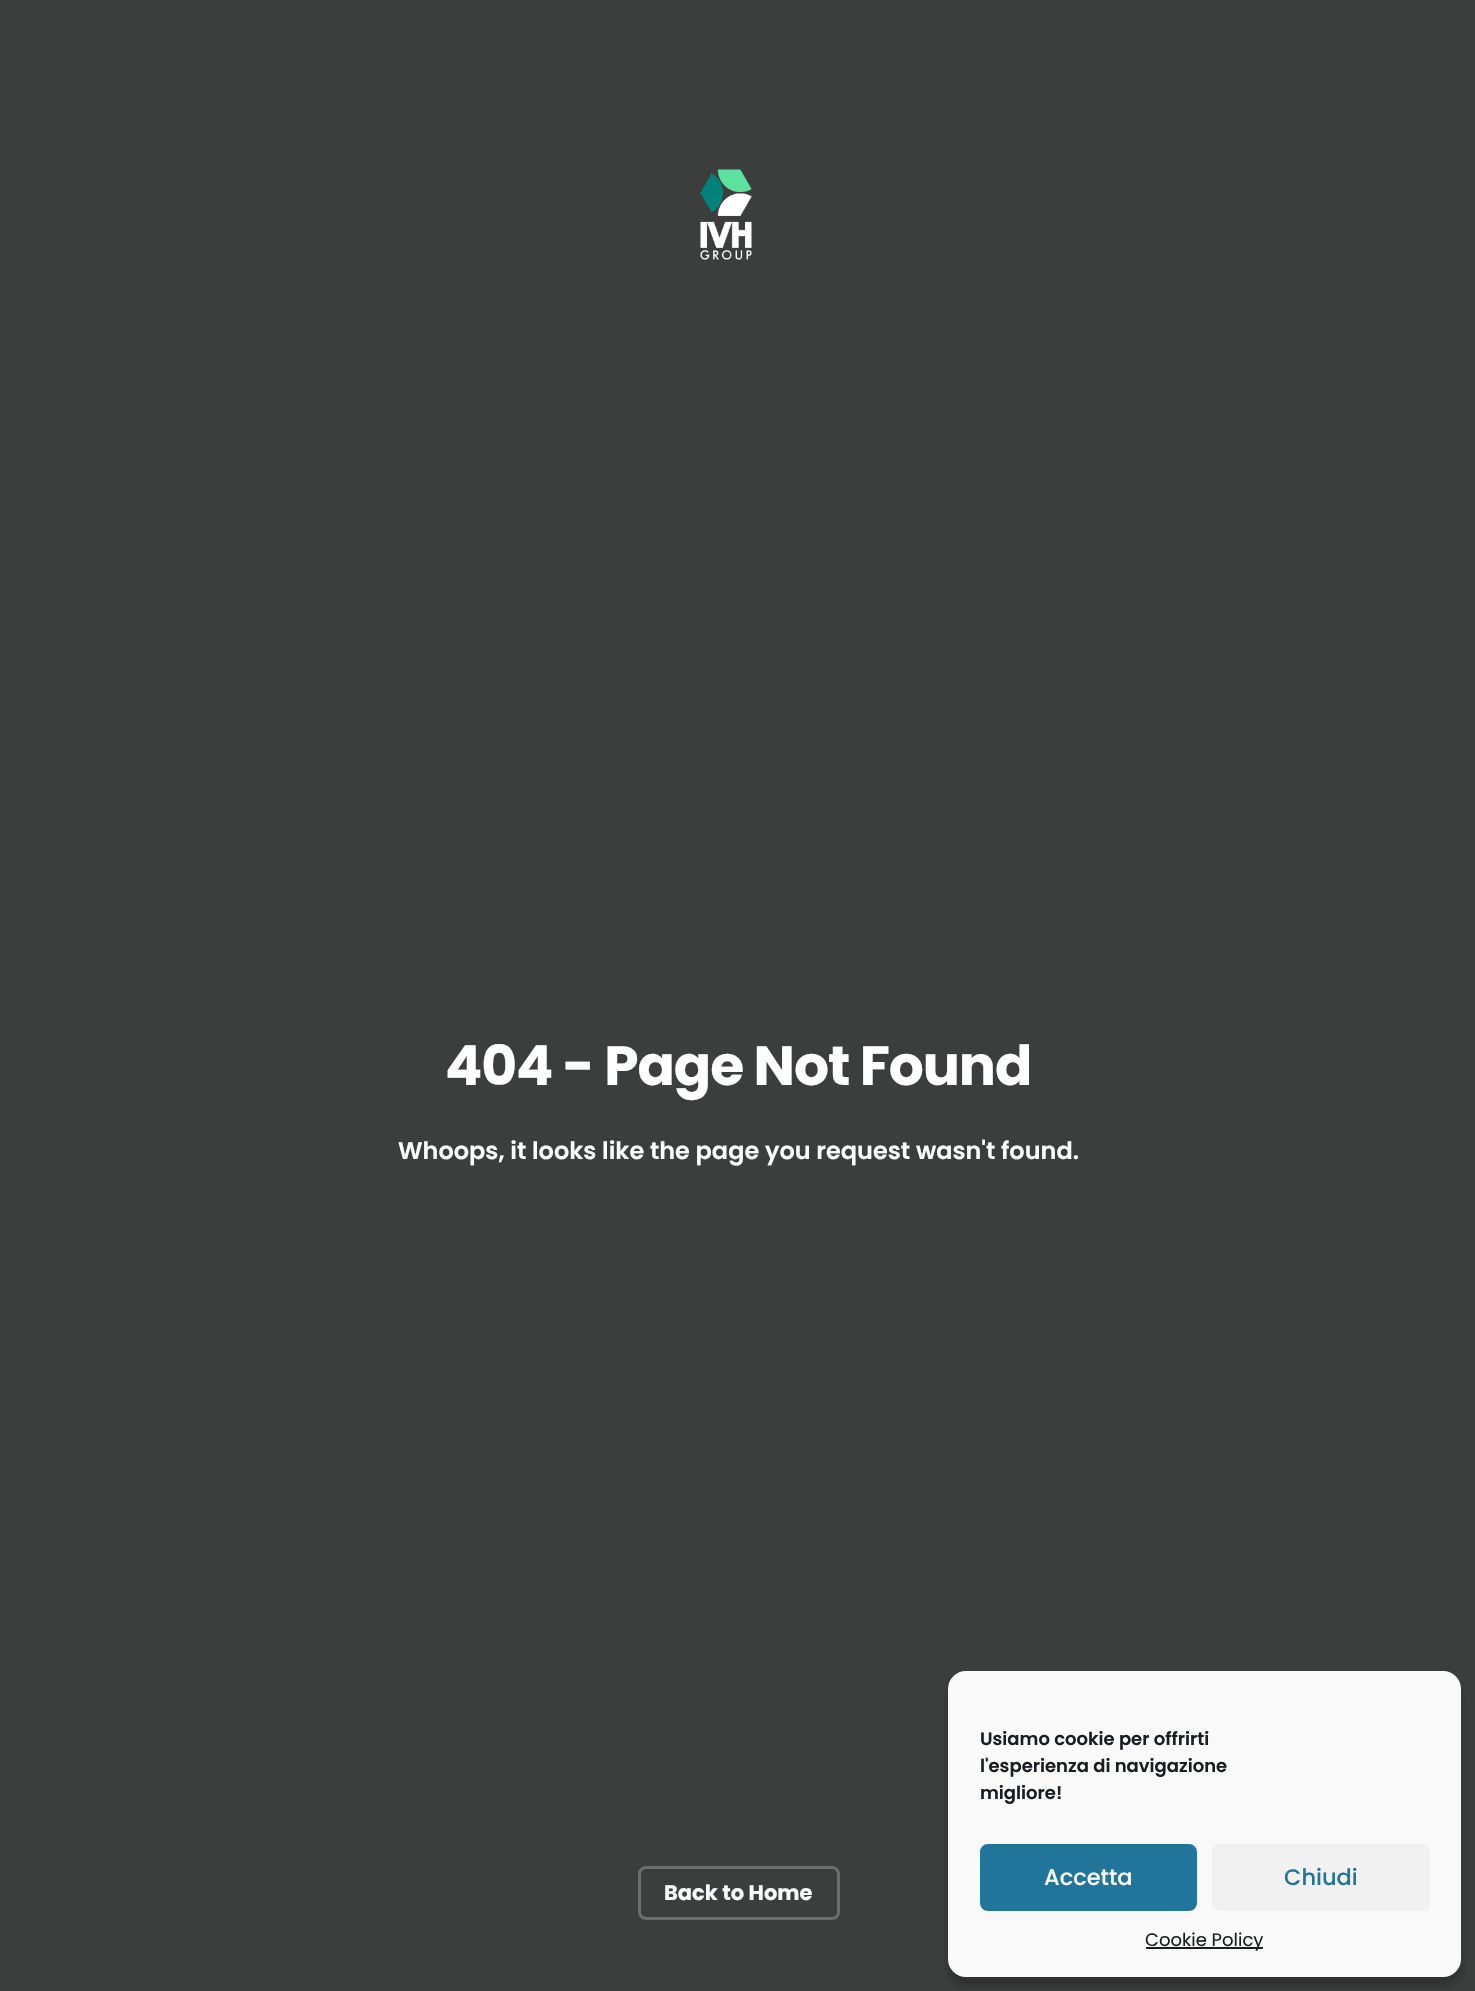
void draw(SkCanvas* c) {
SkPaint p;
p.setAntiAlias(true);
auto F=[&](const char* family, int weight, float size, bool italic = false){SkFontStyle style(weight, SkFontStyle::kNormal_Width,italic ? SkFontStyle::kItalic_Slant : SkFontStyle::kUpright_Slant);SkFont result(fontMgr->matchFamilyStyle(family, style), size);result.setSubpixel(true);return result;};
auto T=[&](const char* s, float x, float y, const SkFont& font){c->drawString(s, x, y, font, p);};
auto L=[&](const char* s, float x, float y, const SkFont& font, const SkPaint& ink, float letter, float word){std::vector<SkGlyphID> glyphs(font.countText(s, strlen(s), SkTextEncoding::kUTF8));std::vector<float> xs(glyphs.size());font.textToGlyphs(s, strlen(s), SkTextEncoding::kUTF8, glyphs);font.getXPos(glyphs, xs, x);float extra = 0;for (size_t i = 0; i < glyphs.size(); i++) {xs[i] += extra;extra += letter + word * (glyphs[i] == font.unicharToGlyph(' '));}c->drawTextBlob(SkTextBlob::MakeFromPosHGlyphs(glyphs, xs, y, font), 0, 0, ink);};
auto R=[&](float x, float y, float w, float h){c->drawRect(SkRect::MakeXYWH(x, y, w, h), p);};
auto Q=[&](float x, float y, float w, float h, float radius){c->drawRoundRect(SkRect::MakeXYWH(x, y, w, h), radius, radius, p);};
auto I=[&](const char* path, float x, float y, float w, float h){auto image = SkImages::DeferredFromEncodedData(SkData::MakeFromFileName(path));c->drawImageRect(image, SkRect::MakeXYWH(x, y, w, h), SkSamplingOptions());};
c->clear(0xff3c3e3e);
I("1.png",700,169,52,91);
auto f1 = F("Poppins",700,55.1);
p.setColor(0xffffffff);
L("404 - Page Not Found",445,1085,f1,p,-1.1,0);
auto f2 = F("Poppins",600,24);
T("Whoops, it looks like the page you request wasn't found.",398,1159,f2);
p.setStroke(true);
p.setStrokeWidth(3);
p.setColor(0xff6b6d6e);
c->drawRoundRect(SkRect::MakeXYWH(639.5,1867.5,199,51),6.5,6.5,p);
auto f3 = F("Poppins",700,21);
p.setStroke(false);
p.setColor(0xfff7f9fc);
T("Back to Home",664,1900,f3);
p.setColor(0x3b000000);
p.setMaskFilter(SkMaskFilter::MakeBlur(kNormal_SkBlurStyle, 4.5));
c->drawRoundRect(SkRect::MakeXYWH(948,1680,513,306),18,18,p);
p.setMaskFilter(nullptr);
p.setColor(0xfff9f9f9);
c->drawRoundRect(SkRect::MakeXYWH(949,1672,511,304),17,17,p);
p.setStroke(true);
p.setStrokeWidth(2);
c->drawRoundRect(SkRect::MakeXYWH(949,1672,511,304),17,17,p);
auto f4 = F("Poppins",600,18);
p.setStroke(false);
p.setColor(0xff191e23);
T("Usiamo cookie per offrirti",980,1745,f4);
T("l'esperienza di navigazione",980,1772,f4);
T("migliore!",980,1799,f4);
p.setColor(0xff21759b);
c->drawRoundRect(SkRect::MakeXYWH(981,1845,215,65),7,7,p);
p.setStroke(true);
c->drawRoundRect(SkRect::MakeXYWH(981,1845,215,65),7,7,p);
auto f5 = F("Poppins",500,22.5);
p.setStroke(false);
p.setColor(0xffffffff);
T("Accetta",1044,1885,f5);
p.setColor(0xfff1f1f1);
Q(1212,1844,218,67,8);
p.setColor(0xff21759b);
T("Chiudi",1284,1885,f5);
p.setColor(0xff191e23);
R(1146,1947,117,2);
auto f6 = F("Poppins",400,18);
T("Cookie Policy",1145,1946,f6);
}
